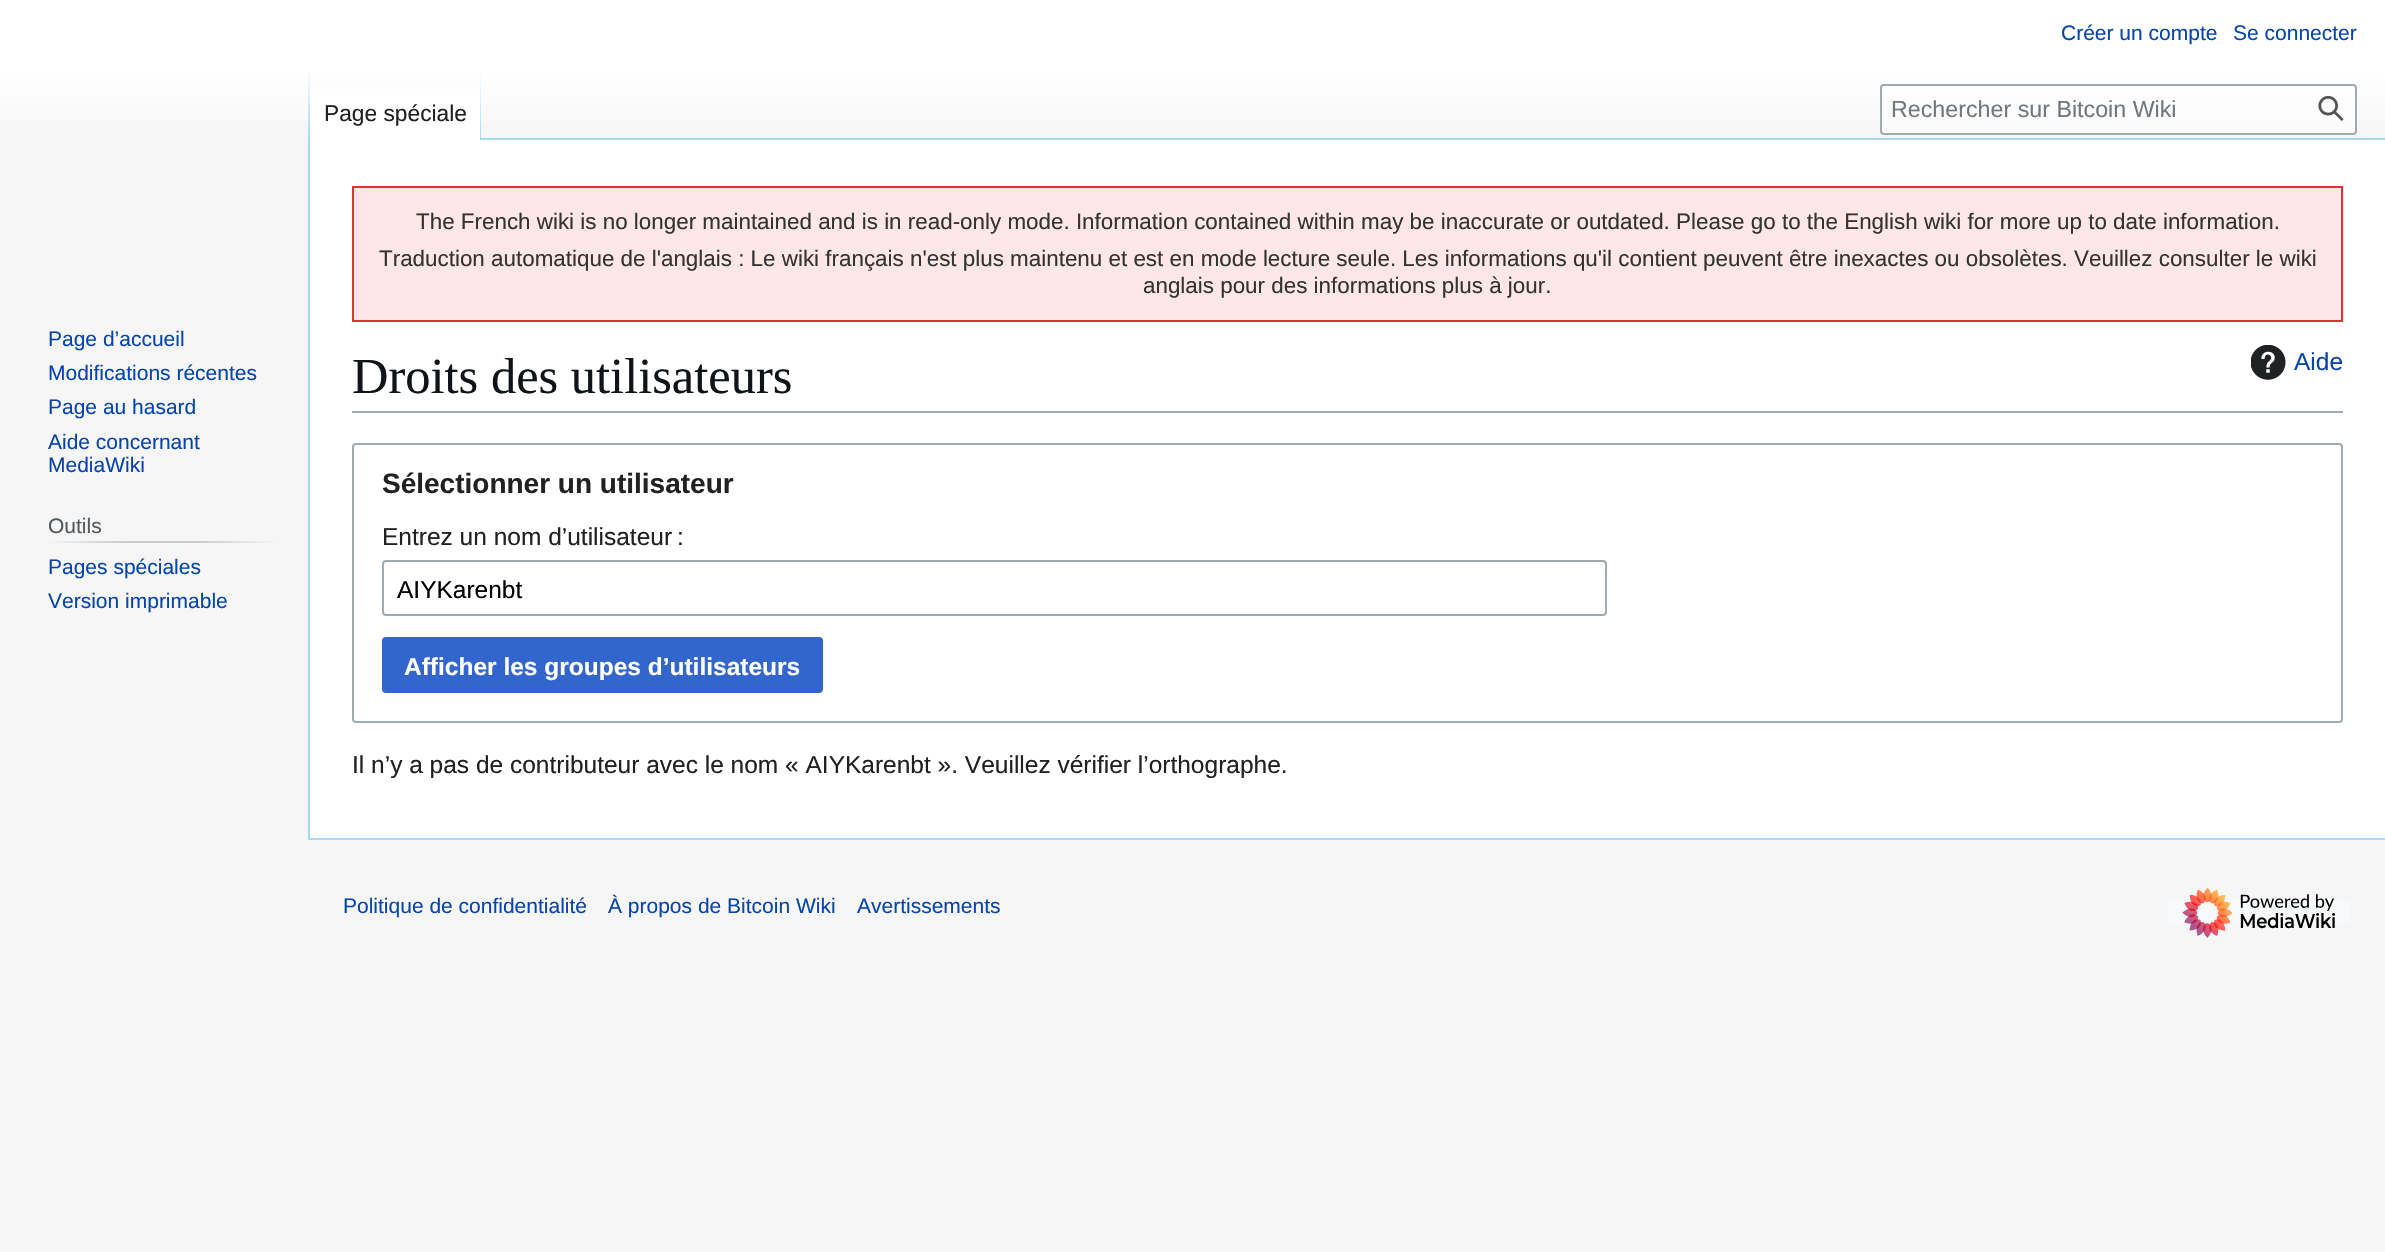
void draw(SkCanvas* c) {
SkPaint p;
p.setAntiAlias(true);
auto F=[&](const char* family, int weight, float size, bool italic = false){SkFontStyle style(weight, SkFontStyle::kNormal_Width,italic ? SkFontStyle::kItalic_Slant : SkFontStyle::kUpright_Slant);SkFont result(fontMgr->matchFamilyStyle(family, style), size);result.setSubpixel(true);return result;};
auto T=[&](const char* s, float x, float y, const SkFont& font){c->drawString(s, x, y, font, p);};
auto R=[&](float x, float y, float w, float h){c->drawRect(SkRect::MakeXYWH(x, y, w, h), p);};
auto I=[&](const char* path, float x, float y, float w, float h){auto image = SkImages::DeferredFromEncodedData(SkData::MakeFromFileName(path));c->drawImageRect(image, SkRect::MakeXYWH(x, y, w, h), SkSamplingOptions());};
c->clear(0xfff6f6f6);
{
const SkColor colors[] = {0xffffffff,0xfff6f6f6};
const float stops[] = {.5,1};
const SkPoint ends[] = {{1193,0}, {1193,140}};
p.setShader(SkGradientShader::MakeLinear(ends, colors, stops, 2, SkTileMode::kClamp));
p.setAlpha(255);
}
R(0,0,2385,121);
auto f1 = F("Liberation Sans",400,21);
p.setShader(nullptr);
p.setColor(0xff0645ad);
T("Créer un compte",2061,40,f1);
T("Se connecter",2233,40,f1);
p.setColor(0xffa7d7f9);
R(308,838,2077,2);
R(308,138,2,702);
{
const SkColor colors[] = {0x00a7d7f9,0xffa7d7f9};
const float stops[] = {0,1};
const SkPoint ends[] = {{309,70}, {309,140}};
p.setShader(SkGradientShader::MakeLinear(ends, colors, stops, 2, SkTileMode::kClamp));
p.setAlpha(255);
}
R(308,70,2,70);
p.setShader(nullptr);
p.setColor(0xffffffff);
R(310,89,170,51);
{
const SkColor colors[] = {0xffffffff,0xffa7d7f9};
const float stops[] = {0,1};
const SkPoint ends[] = {{480,70}, {480,140}};
p.setShader(SkGradientShader::MakeLinear(ends, colors, stops, 2, SkTileMode::kClamp));
p.setAlpha(255);
}
R(480,70,1,70);
auto f2 = F("Liberation Sans",400,22.75);
p.setShader(nullptr);
p.setColor(0xff202122);
T("Page spéciale",324,121,f2);
p.setColor(0x80ffffff);
c->drawRoundRect(SkRect::MakeXYWH(1881,85,475,49),3,3,p);
p.setStroke(true);
p.setStrokeWidth(2);
p.setColor(0xffa2a9b1);
c->drawRoundRect(SkRect::MakeXYWH(1881,85,475,49),3,3,p);
auto f3 = F("Liberation Sans",400,23.25);
p.setStroke(false);
p.setColor(0xff72777d);
T("Rechercher sur Bitcoin Wiki",1891,117,f3);
I("1.png",2318,95,26,26);
p.setColor(0xff0645ad);
T("Page d’accueil",48,346,f1);
T("Modifications récentes",48,380,f1);
T("Page au hasard",48,414,f1);
T("Aide concernant",48,449,f1);
T("MediaWiki",48,472,f1);
{
const SkColor colors[] = {0xfff6f6f6,0xffc8ccd1,0xffc8ccd1,0xfff6f6f6};
const float stops[] = {0,.33,.66,1};
const SkPoint ends[] = {{47,542}, {277,542}};
p.setShader(SkGradientShader::MakeLinear(ends, colors, stops, 4, SkTileMode::kClamp));
p.setAlpha(255);
}
R(47,541,230,2);
p.setShader(nullptr);
p.setColor(0xff54595d);
T("Outils",48,533,f1);
p.setColor(0xff0645ad);
T("Pages spéciales",48,574,f1);
T("Version imprimable",48,608,f1);
p.setColor(0xffffffff);
R(310,140,2075,698);
p.setColor(0xffa7d7f9);
R(481,138,1904,2);
p.setColor(0xfffee7e6);
c->drawRect(SkRect::MakeXYWH(353,187,1989,134),p);
p.setStroke(true);
p.setColor(0xffdd3333);
c->drawRect(SkRect::MakeXYWH(353,187,1989,134),p);
auto f4 = F("Liberation Sans",400,22.4);
p.setStroke(false);
p.setColor(0xff333333);
T("The French wiki is no longer maintained and is in read-only mode. Information contained within may be inaccurate or outdated. Please go to the English wiki for more up to date information.",416,229,f4);
T("Traduction automatique de l'anglais : Le wiki français n'est plus maintenu et est en mode lecture seule. Les informations qu'il contient peuvent être inexactes ou obsolètes. Veuillez consulter le wiki",379,266,f4);
T("anglais pour des informations plus à jour.",1143,293,f4);
p.setColor(0xffa2a9b1);
R(352,411,1991,2);
auto f5 = F("Liberation Serif",400,50.5);
p.setColor(0xff101418);
T("Droits des utilisateurs",352,393,f5);
I("2.png",2251,345,35,35);
auto f6 = F("Liberation Sans",400,24.5);
p.setColor(0xff0645ad);
T("Aide",2294,370,f6);
p.setStroke(true);
p.setColor(0xffa2a9b1);
c->drawRoundRect(SkRect::MakeXYWH(353,444,1989,278),3,3,p);
auto f7 = F("Liberation Sans",700,28);
p.setStroke(false);
p.setColor(0xff202122);
T("Sélectionner un utilisateur",382,493,f7);
T("Entrez un nom d’utilisateur :",382,545,f6);
p.setStroke(true);
p.setColor(0xffa2a9b1);
c->drawRoundRect(SkRect::MakeXYWH(383,561,1223,54),3,3,p);
p.setStroke(false);
p.setColor(0xff000000);
T("AIYKarenbt",397,598,f6);
p.setColor(0xff3366cc);
c->drawRoundRect(SkRect::MakeXYWH(383,638,439,54),3,3,p);
p.setStroke(true);
c->drawRoundRect(SkRect::MakeXYWH(383,638,439,54),3,3,p);
auto f8 = F("Liberation Sans",700,24.5);
p.setStroke(false);
p.setColor(0xffffffff);
T("Afficher les groupes d’utilisateurs",404,675,f8);
p.setColor(0xff202122);
T("Il n’y a pas de contributeur avec le nom « AIYKarenbt ». Veuillez vérifier l’orthographe.",352,773,f6);
p.setColor(0xff0645ad);
T("Politique de confidentialité",343,913,f1);
T("À propos de Bitcoin Wiki",608,913,f1);
T("Avertissements",857,913,f1);
p.setColor(0xfff8f9fa);
R(2168,900,182,24);
I("3.png",2182,887,153,51);
}
